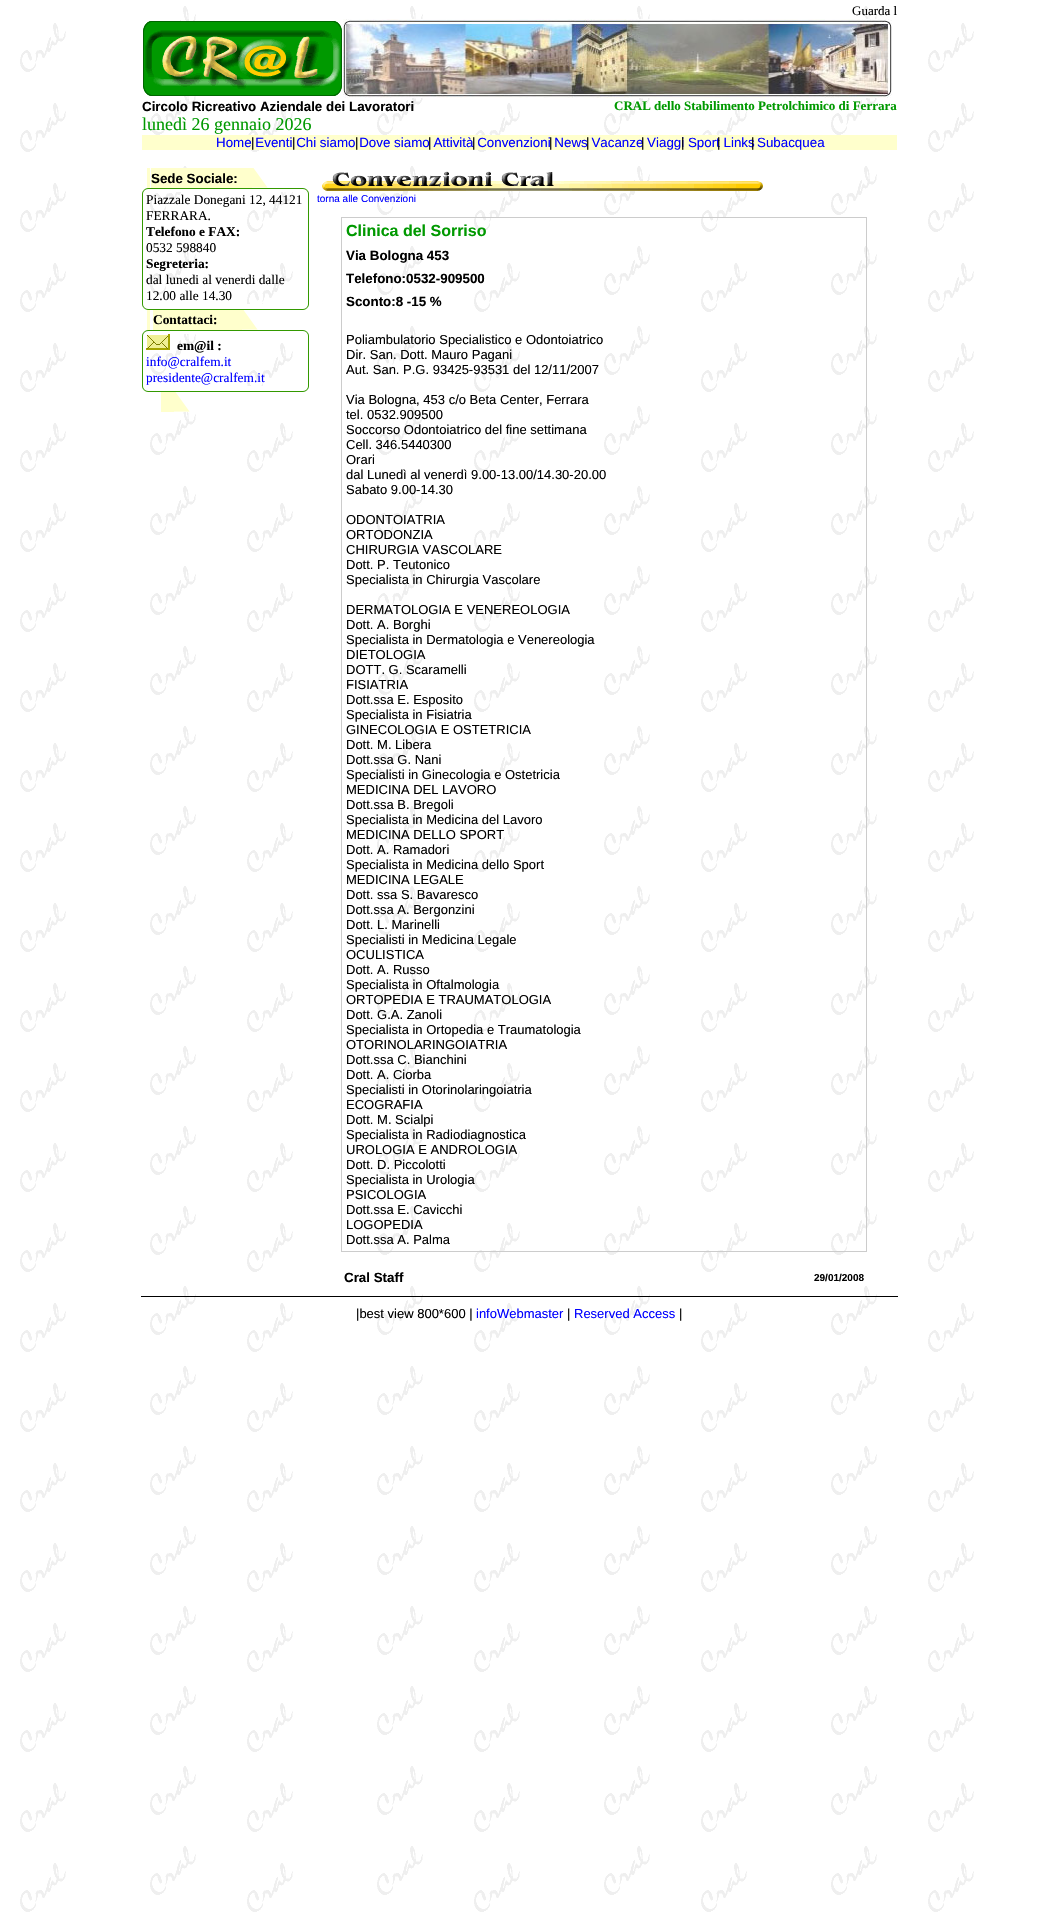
void draw(SkCanvas* c) {
SkPaint p;
p.setAntiAlias(true);
auto F=[&](const char* family, int weight, float size, bool italic = false){SkFontStyle style(weight, SkFontStyle::kNormal_Width,italic ? SkFontStyle::kItalic_Slant : SkFontStyle::kUpright_Slant);SkFont result(fontMgr->matchFamilyStyle(family, style), size);result.setSubpixel(true);return result;};
auto T=[&](const char* s, float x, float y, const SkFont& font){c->drawString(s, x, y, font, p);};
auto R=[&](float x, float y, float w, float h){c->drawRect(SkRect::MakeXYWH(x, y, w, h), p);};
auto I=[&](const char* path, float x, float y, float w, float h){auto image = SkImages::DeferredFromEncodedData(SkData::MakeFromFileName(path));c->drawImageRect(image, SkRect::MakeXYWH(x, y, w, h), SkSamplingOptions());};
c->clear(0xffffffff);
I("1.png",20,6,954,1906);
auto f1 = F("Liberation Serif",400,13);
p.setColor(0xff000000);
T("Guarda l",852,15,f1);
I("2.png",143,21,199,75);
I("3.png",343,19,549,79);
auto f2 = F("Liberation Sans",700,13.35);
T("Circolo Ricreativo Aziendale dei Lavoratori",142,111,f2);
auto f3 = F("Liberation Serif",700,13);
p.setColor(0xff009900);
T("CRAL dello Stabilimento Petrolchimico di Ferrara",614,110,f3);
auto f4 = F("Liberation Serif",400,18);
T("lunedì 26 gennaio 2026",142,130,f4);
p.setColor(0xffffffcc);
R(142,135,755,15);
auto f5 = F("Liberation Sans",400,13.35);
p.setColor(0xff0000ff);
T("Home Eventi Chi siamo Dove siamo Attività Convenzioni News Vacanze Viaggi Sport Links",216,147,f5);
T("Subacquea",757,147,f5);
p.setColor(0xff000000);
T("|",251,147,f5);
T("|",292,147,f5);
T("|",355,147,f5);
T("|",428,147,f5);
T("|",472,147,f5);
T("|",549,147,f5);
T("|",586,147,f5);
T("|",641,147,f5);
T("|",681,147,f5);
T("|",717,147,f5);
T("|",751,147,f5);
p.setColor(0xffffffcc);
R(147,168,3,20);
R(151,168,101,20);
p.setColor(0xff000000);
T("Sede Sociale:",151,183,f2);
I("4.png",252,168,33,20);
I("5.png",142,188,4,4);
I("6.png",146,188,158,4);
I("7.png",304,188,5,4);
I("8.png",142,192,2,112);
auto f6 = F("Liberation Serif",400,13.35);
T("Piazzale Donegani 12, 44121",146,204,f6);
T("FERRARA.",146,220,f6);
auto f7 = F("Liberation Serif",700,13.35);
T("Telefono e FAX:",146,236,f7);
T("0532 598840",146,252,f6);
T("Segreteria:",146,268,f7);
T("dal lunedi al venerdi dalle",146,284,f6);
T("12.00 alle 14.30",146,300,f6);
I("9.png",307,192,2,112);
I("10.png",142,304,4,6);
I("11.png",146,304,158,6);
I("12.png",304,304,5,6);
p.setColor(0xffffffcc);
R(147,310,3,20);
R(153,310,89,20);
p.setColor(0xff000000);
T("Contattaci:",153,324,f7);
I("13.png",242,310,17,20);
I("5.png",142,330,4,4);
I("6.png",146,330,158,4);
I("7.png",304,330,5,4);
I("14.png",142,334,2,52);
I("15.png",146,334,24,16);
T("em@il :",177,350,f7);
p.setColor(0xff0000ff);
T("info@cralfem.it",146,366,f6);
T("presidente@cralfem.it",146,382,f6);
I("16.png",307,334,2,52);
I("10.png",142,386,4,6);
I("11.png",146,386,158,6);
I("12.png",304,386,5,6);
p.setColor(0xffffffcc);
R(161,392,13,20);
I("17.png",174,392,16,20);
I("18.png",322,171,441,20);
auto f8 = F("Liberation Sans",400,10);
p.setColor(0xff0000ff);
T("torna alle Convenzioni",317,202,f8);
p.setStroke(true);
p.setStrokeWidth(1);
p.setColor(0xffcccccc);
c->drawRect(SkRect::MakeXYWH(341.5,217.5,525,1034),p);
auto f9 = F("Liberation Sans",700,16);
p.setStroke(false);
p.setColor(0xff009900);
T("Clinica del Sorriso",346,236,f9);
p.setColor(0xff000000);
T("Via Bologna 453",346,260,f2);
T("Telefono:0532-909500",346,283,f2);
T("Sconto:8 -15 %",346,306,f2);
auto f10 = F("Liberation Sans",400,13);
T("Poliambulatorio Specialistico e Odontoiatrico",346,344,f10);
T("Dir. San. Dott. Mauro Pagani",346,359,f10);
T("Aut. San. P.G. 93425-93531 del 12/11/2007",346,374,f10);
T("Via Bologna, 453 c/o Beta Center, Ferrara",346,404,f10);
T("tel. 0532.909500",346,419,f10);
T("Soccorso Odontoiatrico del fine settimana",346,434,f10);
T("Cell. 346.5440300",346,449,f10);
T("Orari",346,464,f10);
T("dal Lunedì al venerdì 9.00-13.00/14.30-20.00",346,479,f10);
T("Sabato 9.00-14.30",346,494,f10);
T("ODONTOIATRIA",346,524,f10);
T("ORTODONZIA",346,539,f10);
T("CHIRURGIA VASCOLARE",346,554,f10);
T("Dott. P. Teutonico",346,569,f10);
T("Specialista in Chirurgia Vascolare",346,584,f10);
T("DERMATOLOGIA E VENEREOLOGIA",346,614,f10);
T("Dott. A. Borghi",346,629,f10);
T("Specialista in Dermatologia e Venereologia",346,644,f10);
T("DIETOLOGIA",346,659,f10);
T("DOTT. G. Scaramelli",346,674,f10);
T("FISIATRIA",346,689,f10);
T("Dott.ssa E. Esposito",346,704,f10);
T("Specialista in Fisiatria",346,719,f10);
T("GINECOLOGIA E OSTETRICIA",346,734,f10);
T("Dott. M. Libera",346,749,f10);
T("Dott.ssa G. Nani",346,764,f10);
T("Specialisti in Ginecologia e Ostetricia",346,779,f10);
T("MEDICINA DEL LAVORO",346,794,f10);
T("Dott.ssa B. Bregoli",346,809,f10);
T("Specialista in Medicina del Lavoro",346,824,f10);
T("MEDICINA DELLO SPORT",346,839,f10);
T("Dott. A. Ramadori",346,854,f10);
T("Specialista in Medicina dello Sport",346,869,f10);
T("MEDICINA LEGALE",346,884,f10);
T("Dott. ssa S. Bavaresco",346,899,f10);
T("Dott.ssa A. Bergonzini",346,914,f10);
T("Dott. L. Marinelli",346,929,f10);
T("Specialisti in Medicina Legale",346,944,f10);
T("OCULISTICA",346,959,f10);
T("Dott. A. Russo",346,974,f10);
T("Specialista in Oftalmologia",346,989,f10);
T("ORTOPEDIA E TRAUMATOLOGIA",346,1004,f10);
T("Dott. G.A. Zanoli",346,1019,f10);
T("Specialista in Ortopedia e Traumatologia",346,1034,f10);
T("OTORINOLARINGOIATRIA",346,1049,f10);
T("Dott.ssa C. Bianchini",346,1064,f10);
T("Dott. A. Ciorba",346,1079,f10);
T("Specialisti in Otorinolaringoiatria",346,1094,f10);
T("ECOGRAFIA",346,1109,f10);
T("Dott. M. Scialpi",346,1124,f10);
T("Specialista in Radiodiagnostica",346,1139,f10);
T("UROLOGIA E ANDROLOGIA",346,1154,f10);
T("Dott. D. Piccolotti",346,1169,f10);
T("Specialista in Urologia",346,1184,f10);
T("PSICOLOGIA",346,1199,f10);
T("Dott.ssa E. Cavicchi",346,1214,f10);
T("LOGOPEDIA",346,1229,f10);
T("Dott.ssa A. Palma",346,1244,f10);
T("Cral Staff",344,1282,f2);
auto f11 = F("Liberation Sans",700,10);
T("29/01/2008",814,1281,f11);
R(141,1296,757,1);
T("|best view 800*600 |",356,1318,f10);
p.setColor(0xff0000ff);
T("infoWebmaster",476,1318,f10);
p.setColor(0xff000000);
T("|",567,1318,f10);
p.setColor(0xff0000ff);
T("Reserved Access",574,1318,f10);
p.setColor(0xff000000);
T("|",679,1318,f10);
}
